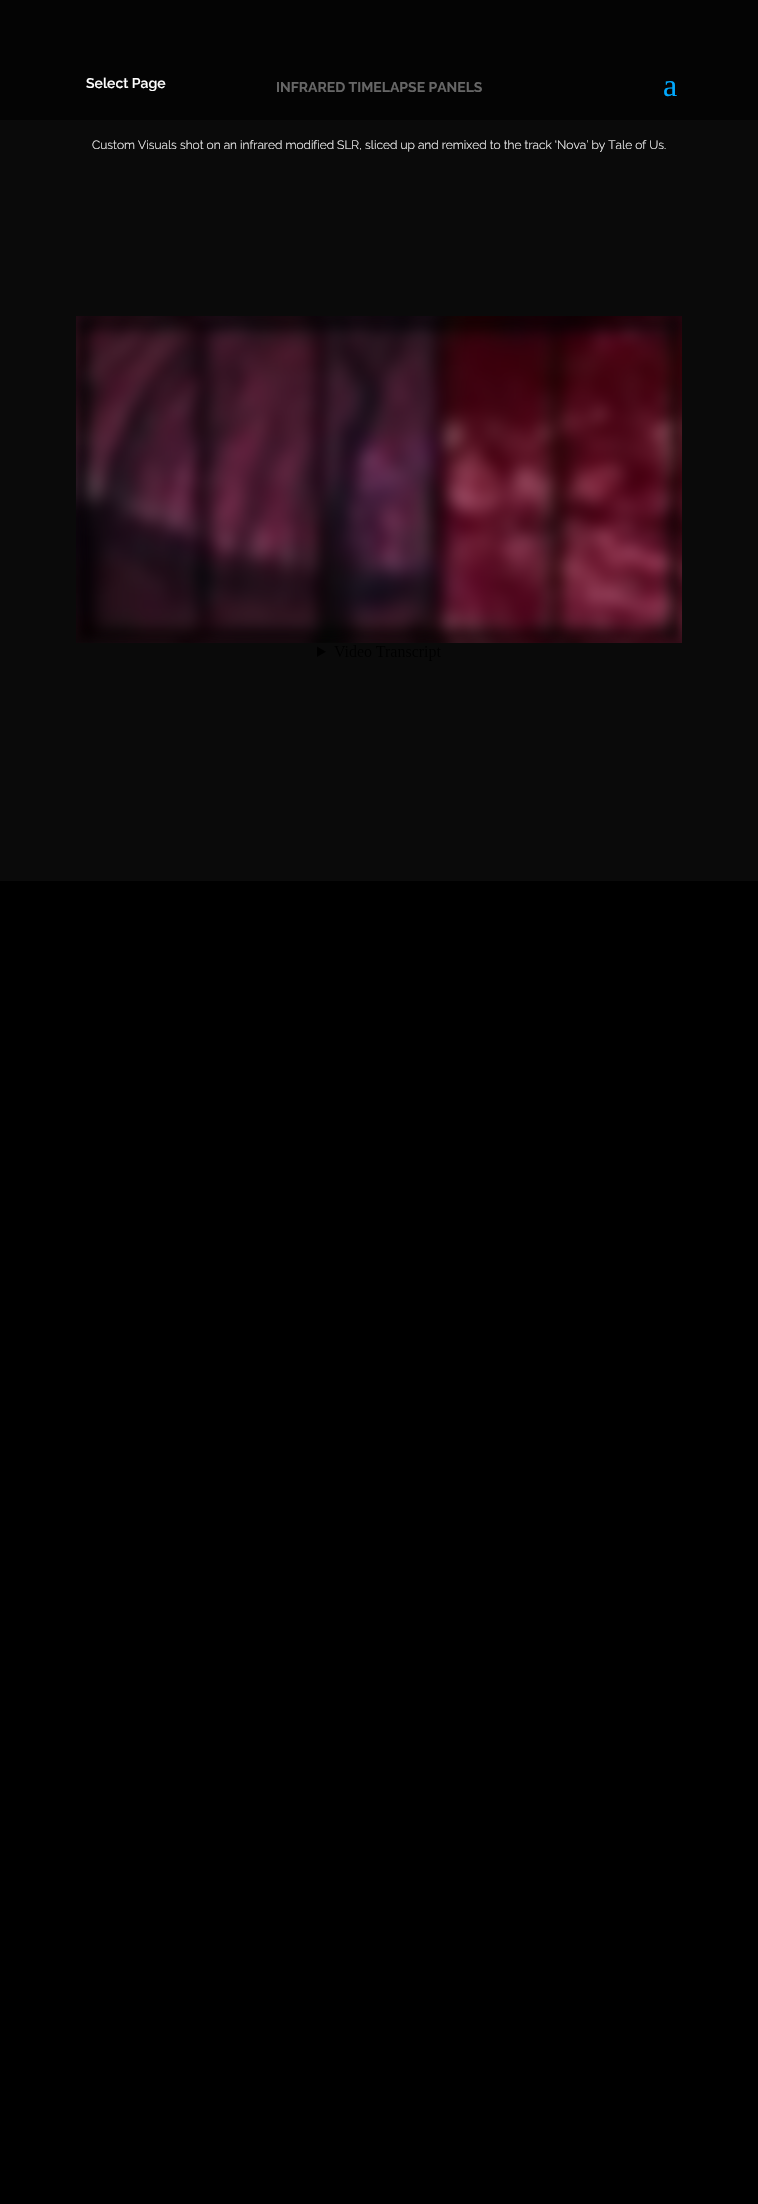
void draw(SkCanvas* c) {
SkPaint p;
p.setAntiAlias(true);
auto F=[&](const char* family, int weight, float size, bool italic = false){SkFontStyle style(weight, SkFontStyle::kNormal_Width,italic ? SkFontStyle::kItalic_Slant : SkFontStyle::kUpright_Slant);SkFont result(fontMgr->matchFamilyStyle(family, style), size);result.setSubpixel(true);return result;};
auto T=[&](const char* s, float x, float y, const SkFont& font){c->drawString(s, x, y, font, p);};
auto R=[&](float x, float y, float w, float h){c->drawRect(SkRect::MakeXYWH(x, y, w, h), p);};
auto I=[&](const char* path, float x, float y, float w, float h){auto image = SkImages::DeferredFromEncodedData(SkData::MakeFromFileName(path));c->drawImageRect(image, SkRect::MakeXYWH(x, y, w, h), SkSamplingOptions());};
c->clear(0xff000000);
p.setColor(0xff040404);
R(0,0,758,120);
p.setColor(0x0d000000);
R(277,82,205,10);
auto f1 = F("Raleway",600,14);
p.setColor(0xffffffff);
T("Select Page",86,88,f1);
auto f2 = F("Liberation Serif",400,32);
p.setColor(0xff00a9ff);
T("a",663,96,f2);
p.setColor(0xff0a0a0a);
R(0,120,758,761);
auto f3 = F("Raleway",700,14);
p.setColor(0xff666666);
T("INFRARED TIMELAPSE PANELS",276,92,f3);
auto f4 = F("Raleway",300,12);
p.setColor(0xffffffff);
T("Custom Visuals shot on an infrared modified SLR, sliced up and remixed to the track ‘Nova’ by Tale of Us.",92,149,f4);
I("1.png",76,316,606,345);
}
